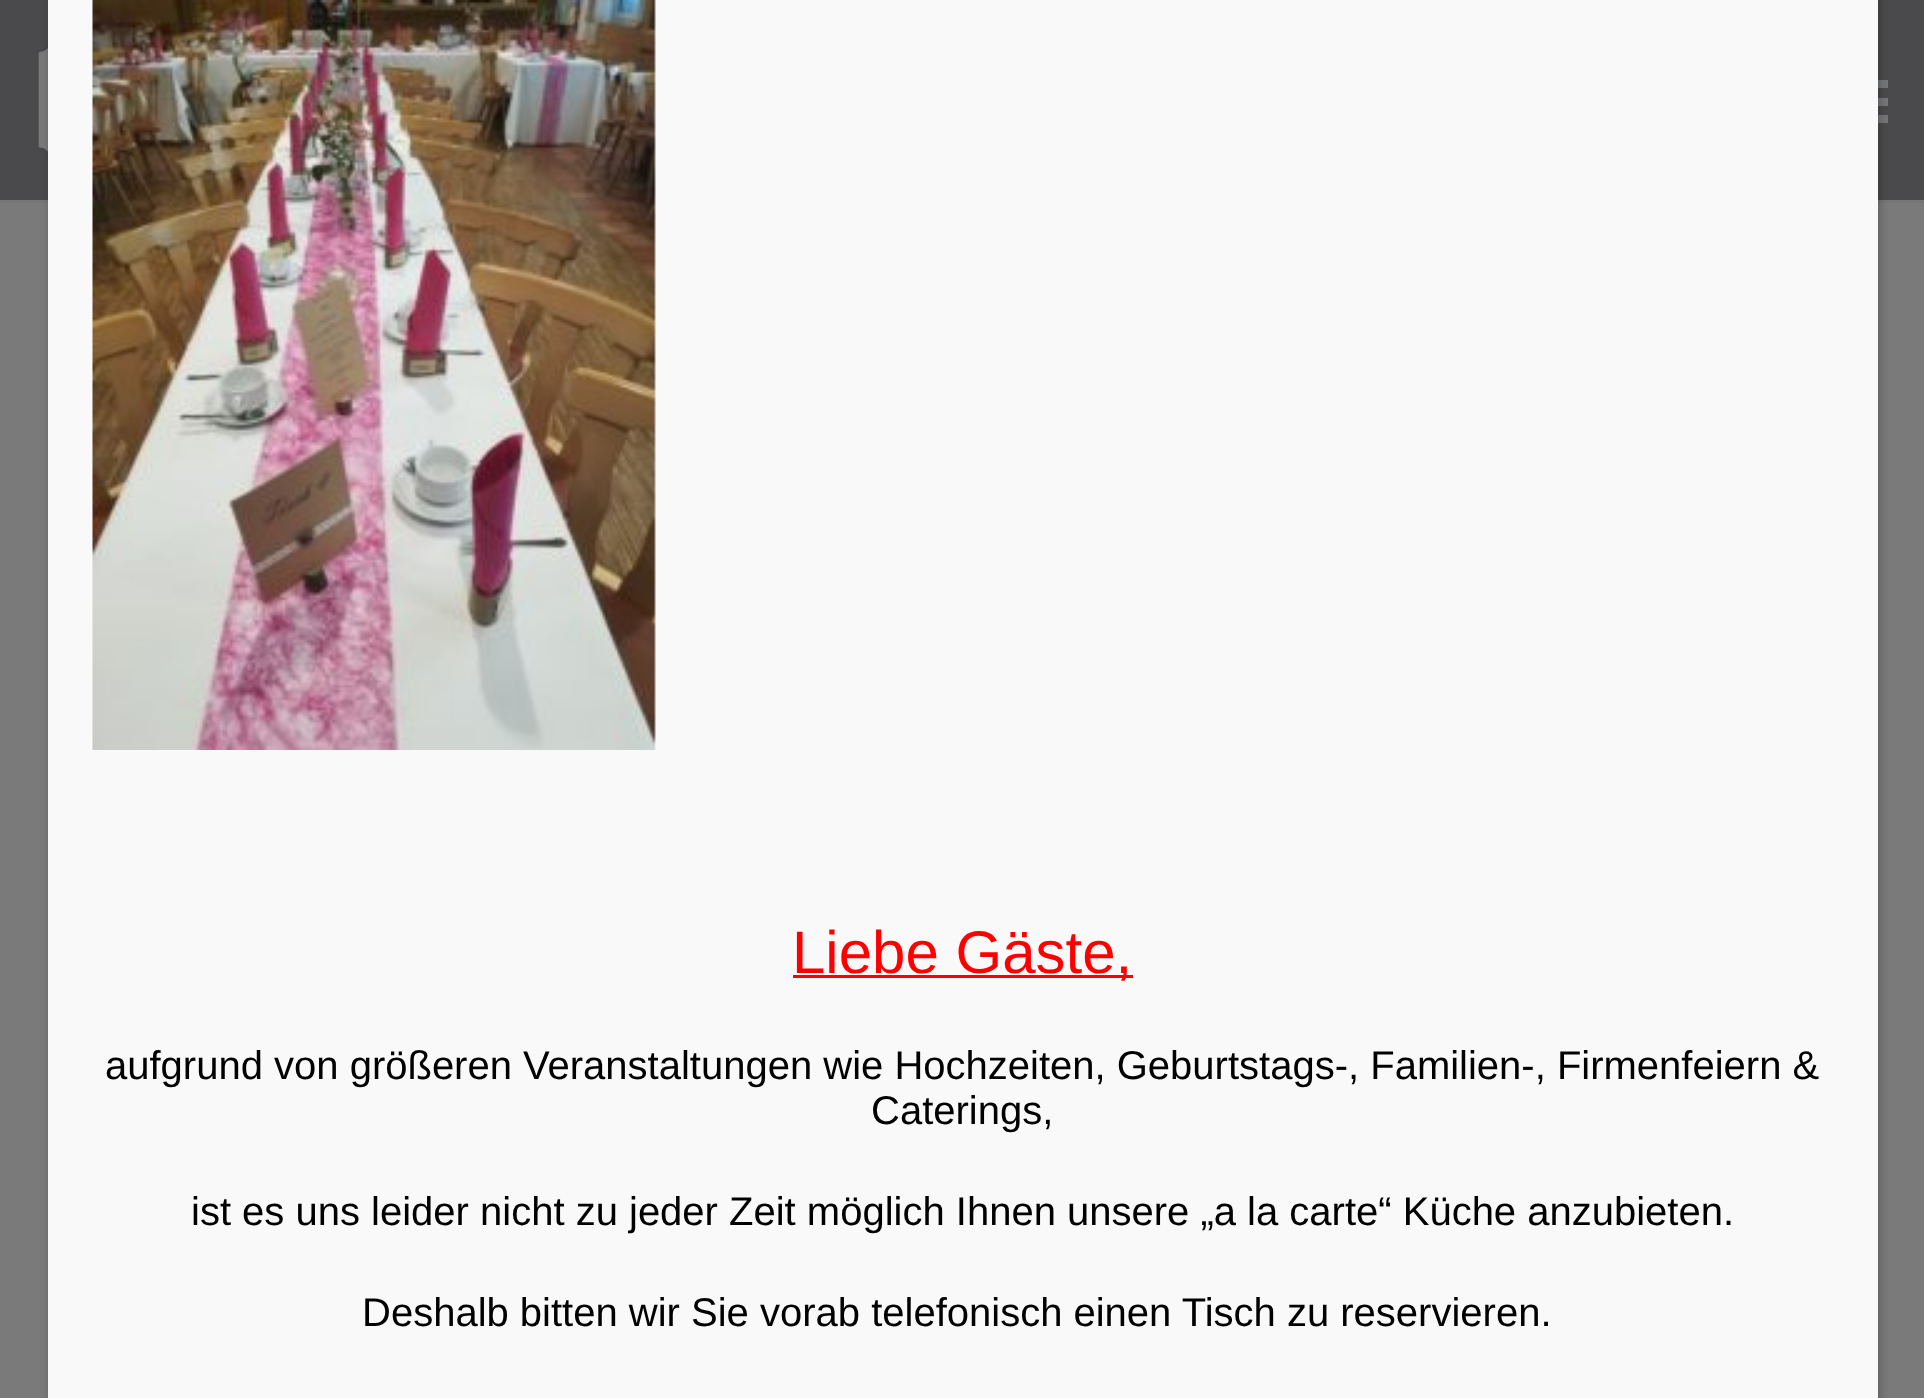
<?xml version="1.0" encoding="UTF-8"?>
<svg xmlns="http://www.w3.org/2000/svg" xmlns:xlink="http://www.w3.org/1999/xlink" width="1924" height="1398">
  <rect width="100%" height="100%" fill="#7a7a7a" />
  <rect y="200" width="1924" height="3" fill="#757575" />
  <rect width="1924" height="200" fill="#4a4a4c" />
  <image x="37" y="45" width="11" height="109" xlink:href="image1.png" />
  <rect x="1878" y="98" width="10" height="8" fill="#757677" />
  <rect x="1878" y="80" width="10" height="8" fill="#757677" />
  <rect x="1878" y="115" width="10" height="8" fill="#757677" />
  <rect x="50" y="-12" width="1830" height="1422" fill="#020202" fill-opacity="0.23" filter="blur(4px)" />
  <rect x="48" width="1830" height="1398" fill="#f9f9f9" />
  <image x="92" y="0" width="564" height="750" xlink:href="image2.png" />
  <rect x="793" y="975" width="340" height="3" fill="#ff0000" />
  <text x="792" y="973" style="font-family: Liberation Sans; font-size: 60px; fill: #ff0000">Liebe Gäste,</text>
  <text x="105" y="1079" style="font-family: Liberation Sans; font-size: 40px; fill: #000000">aufgrund von größeren Veranstaltungen wie Hochzeiten, Geburtstags-, Familien-, Firmenfeiern &amp;</text>
  <text x="871" y="1124" style="font-family: Liberation Sans; font-size: 40px; fill: #000000">Caterings,</text>
  <text x="191" y="1225" style="font-family: Liberation Sans; font-size: 40px; fill: #000000">ist es uns leider nicht zu jeder Zeit möglich Ihnen unsere „a la carte“ Küche anzubieten.</text>
  <text x="362" y="1326" style="font-family: Liberation Sans; font-size: 40px; fill: #000000">Deshalb bitten wir Sie vorab telefonisch einen Tisch zu reservieren.</text>
</svg>
